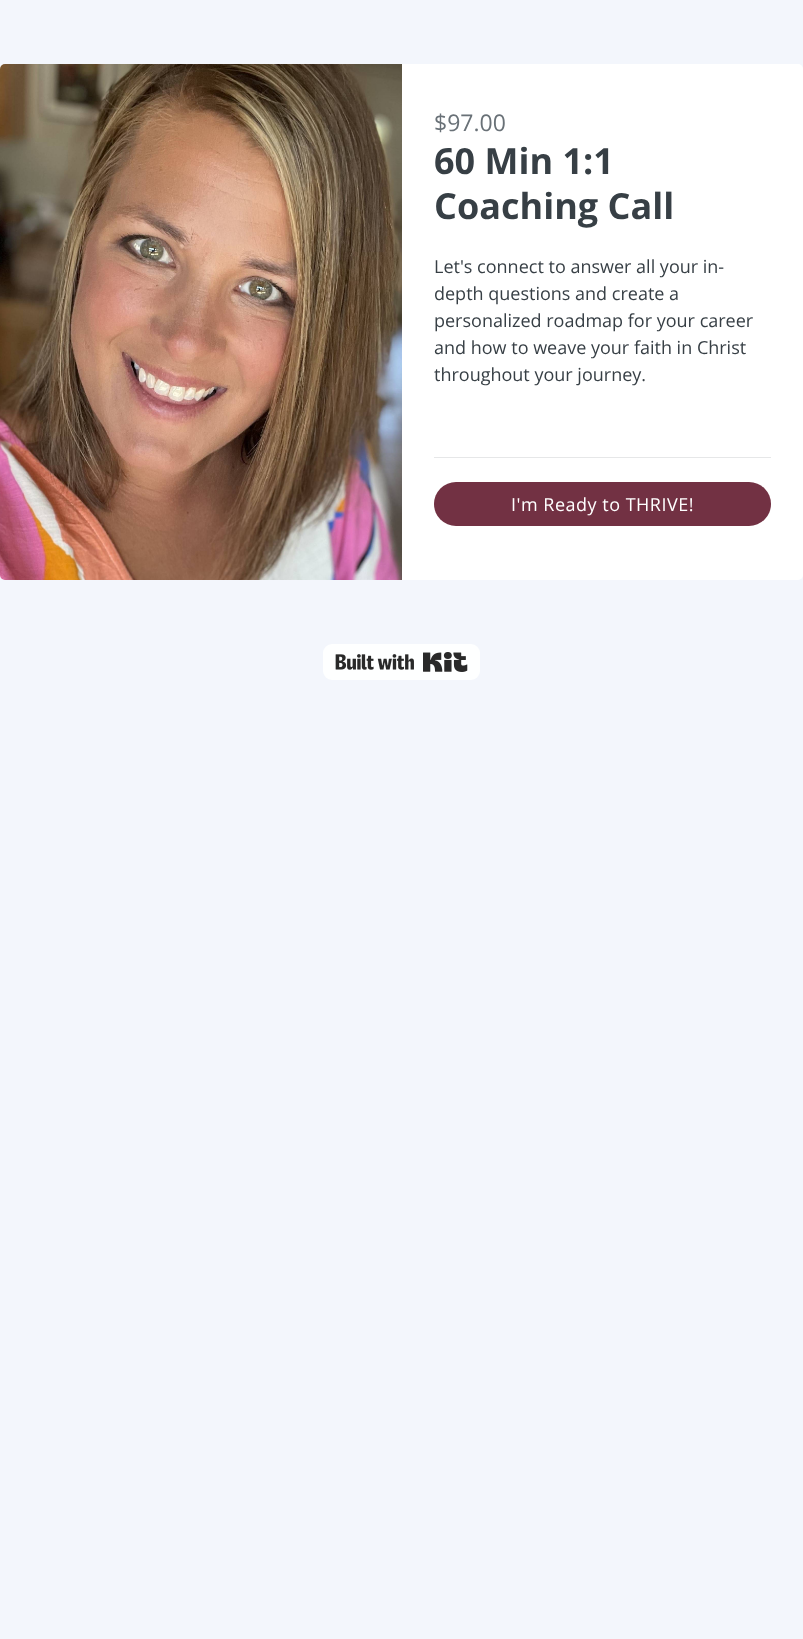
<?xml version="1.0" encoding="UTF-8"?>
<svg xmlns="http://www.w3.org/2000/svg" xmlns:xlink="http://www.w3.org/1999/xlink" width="803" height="1639">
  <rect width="100%" height="100%" fill="#f3f6fc" />
  <rect y="64" width="803" height="516" rx="5" fill="#ffffff" />
  <image x="0" y="64" width="402" height="516" xlink:href="image1.png" />
  <rect x="434" y="457" width="337" height="1" fill="#e6e7e8" />
  <rect x="434" y="482" width="337" height="44" rx="22" fill="#723143" />
  <rect x="323" y="644" width="157" height="36" rx="9" fill="#feffff" />
  <image x="335" y="652" width="133" height="20" xlink:href="image2.png" />
  <text x="434" y="131" style="font-family: Open Sans; font-size: 23px; fill: #697177">$97.00</text>
  <text x="434" y="174" style="font-family: Open Sans; font-size: 36px; font-weight: bold; fill: #373f45">60 Min 1:1</text>
  <text x="434" y="219" style="font-family: Open Sans; font-size: 36px; font-weight: bold; fill: #373f45">Coaching Call</text>
  <text x="434" y="273" style="font-family: Open Sans; font-size: 18px; fill: #373f45">Let's connect to answer all your in-</text>
  <text x="434" y="300" style="font-family: Open Sans; font-size: 18px; fill: #373f45">depth questions and create a</text>
  <text x="434" y="327" style="font-family: Open Sans; font-size: 18px; fill: #373f45">personalized roadmap for your career</text>
  <text x="434" y="354" style="font-family: Open Sans; font-size: 18px; fill: #373f45">and how to weave your faith in Christ</text>
  <text x="434" y="381" style="font-family: Open Sans; font-size: 18px; fill: #373f45">throughout your journey.</text>
  <text x="511" y="511" style="font-family: Open Sans; font-size: 18px; letter-spacing: 0.5px; fill: #ffffff">I'm Ready to THRIVE!</text>
</svg>
